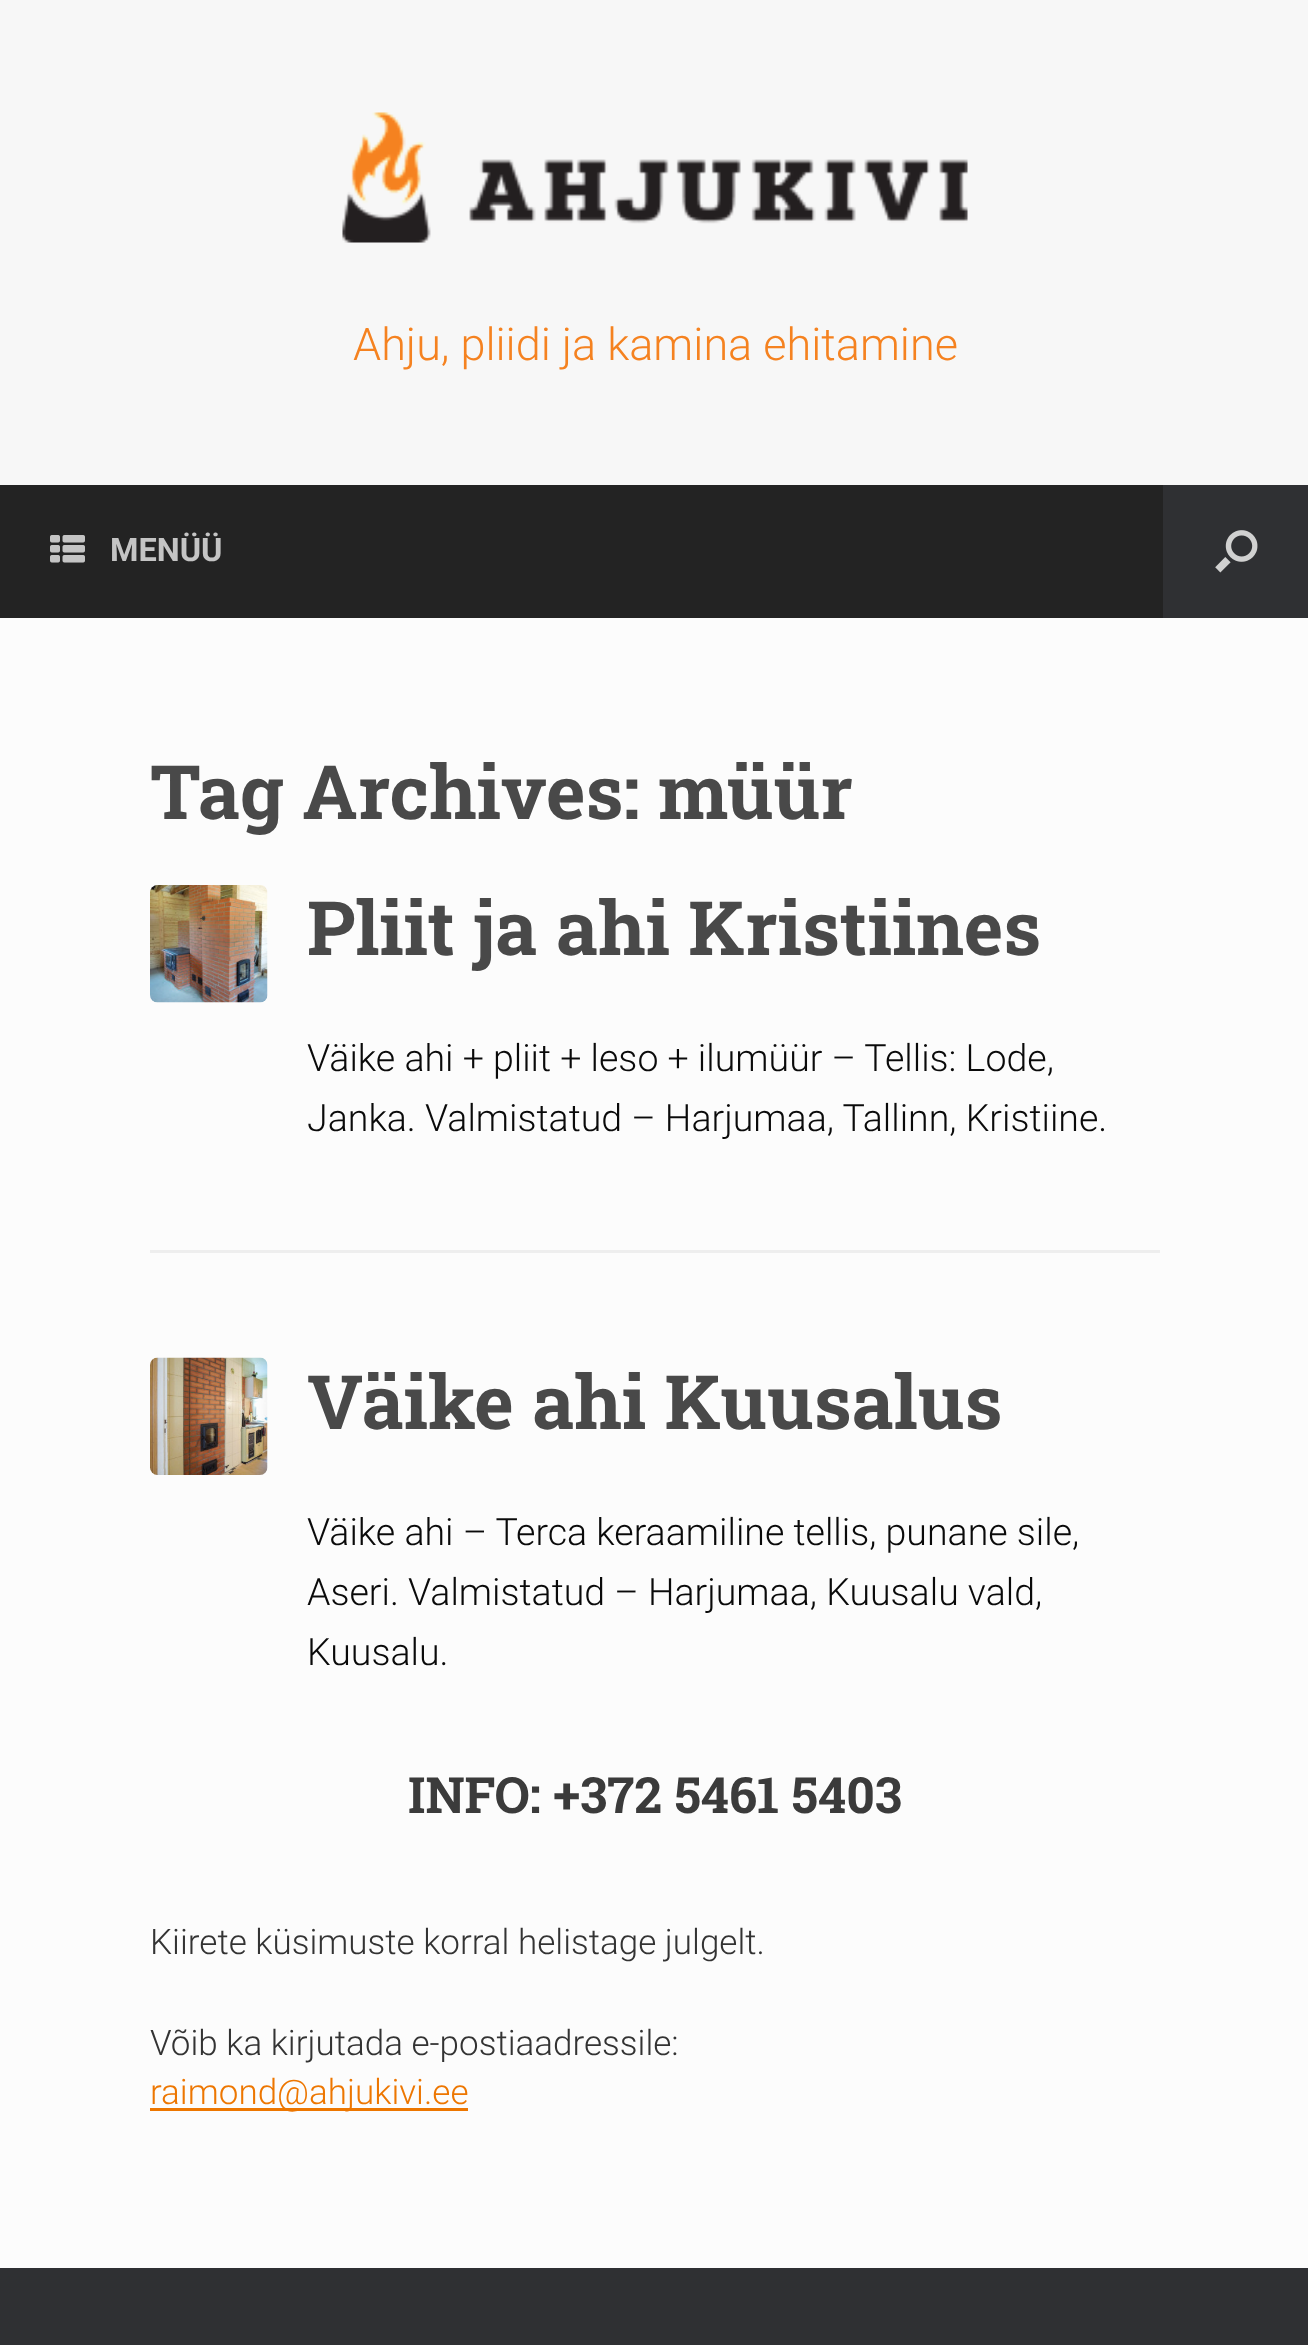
<?xml version="1.0" encoding="UTF-8"?>
<svg xmlns="http://www.w3.org/2000/svg" xmlns:xlink="http://www.w3.org/1999/xlink" width="1308" height="2345">
  <rect width="100%" height="100%" fill="#2f3033" />
  <rect width="1308" height="485" fill="#f7f7f7" />
  <image x="342" y="112" width="626" height="131" xlink:href="image1.png" />
  <rect y="485" width="1163" height="133" fill="#232323" />
  <image x="50" y="535" width="35" height="28" xlink:href="image2.png" />
  <image x="1215" y="530" width="43" height="43" xlink:href="image3.png" />
  <rect y="618" width="1308" height="1650" fill="#fcfcfc" />
  <rect x="150" y="1250" width="1010" height="3" fill="#eeeeee" />
  <image x="150" y="885" width="118" height="118" xlink:href="image4.png" />
  <image x="150" y="1357" width="118" height="118" xlink:href="image5.png" />
  <rect x="150" y="2108" width="318" height="3" fill="#ed7600" />
  <text x="353" y="360" style="font-family: Roboto; font-size: 45px; font-weight: 300; fill: #f58220">Ahju, pliidi ja kamina ehitamine</text>
  <text x="110" y="561" style="font-family: Roboto; font-size: 32.5px; font-weight: bold; fill: #c4c4c4">MENÜÜ</text>
  <text x="150" y="819" style="font-family: Roboto Slab; font-size: 75px; font-weight: bold; fill: #494949">Tag Archives: müür</text>
  <text x="307" y="955" style="font-family: Roboto Slab; font-size: 75px; font-weight: bold; fill: #494949">Pliit ja ahi Kristiines</text>
  <text x="307" y="1071" style="font-family: Roboto; font-size: 37.5px; font-weight: 300; fill: #0a0a0a">Väike ahi + pliit + leso + ilumüür – Tellis: Lode,</text>
  <text x="307" y="1131" style="font-family: Roboto; font-size: 37.5px; font-weight: 300; fill: #0a0a0a">Janka. Valmistatud – Harjumaa, Tallinn, Kristiine.</text>
  <text x="307" y="1429" style="font-family: Roboto Slab; font-size: 75px; font-weight: bold; fill: #494949">Väike ahi Kuusalus</text>
  <text x="307" y="1545" style="font-family: Roboto; font-size: 37.5px; font-weight: 300; fill: #0a0a0a">Väike ahi – Terca keraamiline tellis, punane sile,</text>
  <text x="307" y="1605" style="font-family: Roboto; font-size: 37.5px; font-weight: 300; fill: #0a0a0a">Aseri. Valmistatud – Harjumaa, Kuusalu vald,</text>
  <text x="307" y="1665" style="font-family: Roboto; font-size: 37.5px; font-weight: 300; fill: #0a0a0a">Kuusalu.</text>
  <text x="408" y="1813" style="font-family: Roboto Slab; font-size: 50px; font-weight: bold; fill: #3b3b3b">INFO: +372 5461 5403</text>
  <text x="150" y="1954" style="font-family: Roboto; font-size: 35px; font-weight: 300; fill: #333333">Kiirete küsimuste korral helistage julgelt.</text>
  <text x="150" y="2055" style="font-family: Roboto; font-size: 35px; font-weight: 300; fill: #333333">Võib ka kirjutada e-postiaadressile:</text>
  <text x="150" y="2104" style="font-family: Roboto; font-size: 35px; font-weight: 300; fill: #ed7600">raimond@ahjukivi.ee</text>
</svg>
